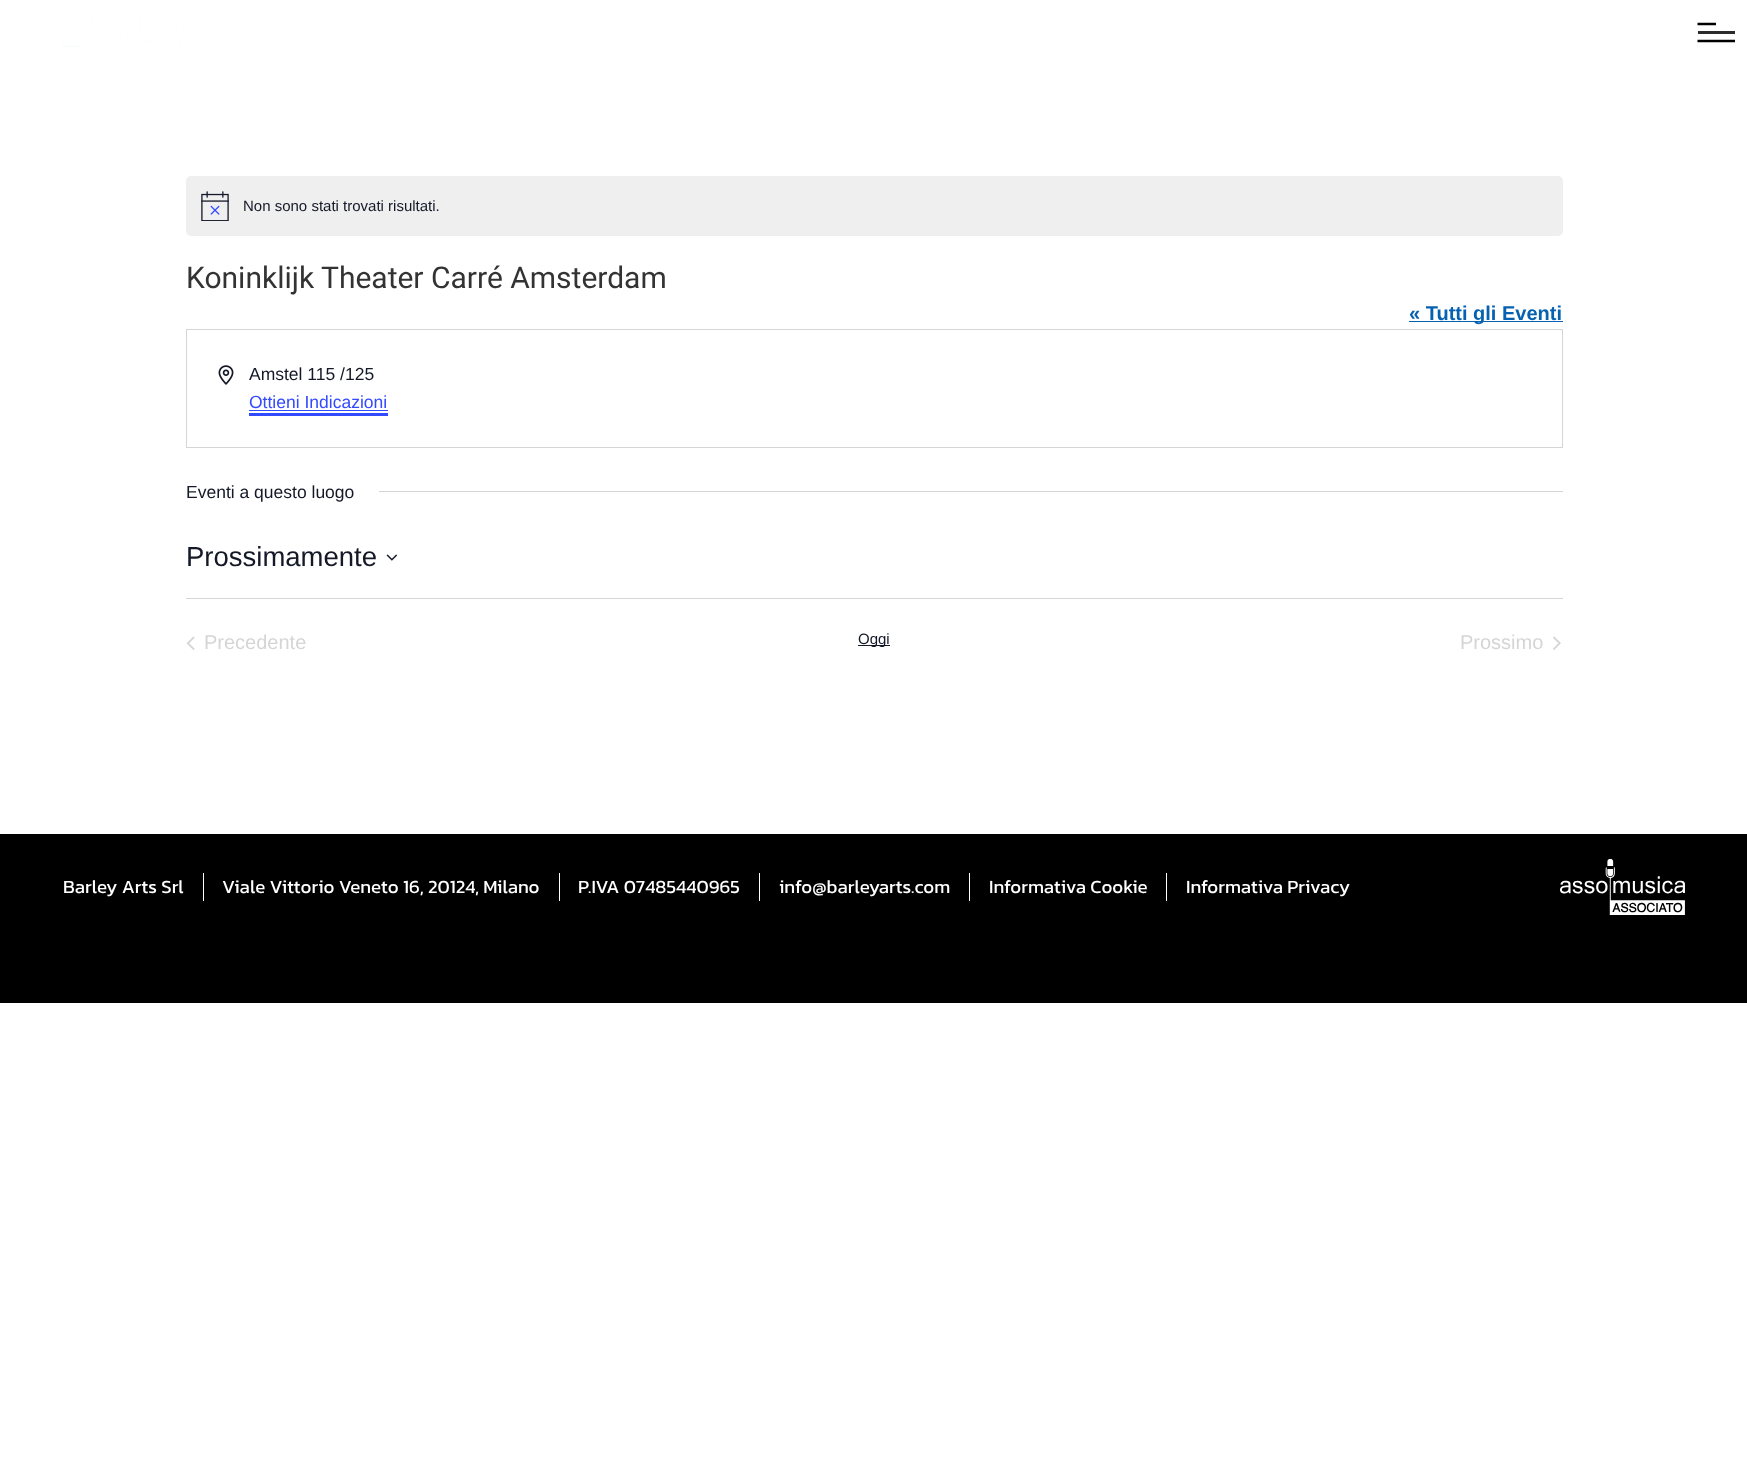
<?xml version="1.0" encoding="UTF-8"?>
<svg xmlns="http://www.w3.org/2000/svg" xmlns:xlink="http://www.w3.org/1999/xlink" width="1747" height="1483">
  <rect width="100%" height="100%" fill="#ffffff" />
  <image x="63" y="16" width="127" height="63" xlink:href="image1.png" />
  <path d="M 1697.5 24 h 18.5" fill="none" stroke="#000000" stroke-width="2.5" />
  <rect x="1698" y="31" width="37" height="3" fill="#2b2b2b" />
  <path d="M 1697.5 41 h 37.5" fill="none" stroke="#000000" stroke-width="2.5" />
  <rect x="186" y="176" width="1377" height="60" rx="5" fill="#efeff0" />
  <image x="201" y="191" width="28" height="30" xlink:href="image2.png" />
  <rect x="1409" y="321" width="154" height="1" fill="#0662b0" />
  <rect x="186.5" y="329.5" width="1376" height="118" fill="none" stroke="#d5d5d5" />
  <image x="218" y="365" width="16" height="20" xlink:href="image3.png" />
  <rect x="249" y="413" width="139" height="3" fill="#334aff" />
  <rect x="249" y="410" width="139" height="1" fill="#334aff" />
  <rect x="379" y="491" width="1184" height="1" fill="#d5d5d5" />
  <image x="386" y="554" width="12" height="7" xlink:href="image4.png" />
  <rect x="186" y="598" width="1377" height="1" fill="#d5d5d5" />
  <image x="186" y="636" width="9" height="14" xlink:href="image5.png" />
  <rect x="858" y="645" width="32" height="1" fill="#141827" />
  <image x="1553" y="636" width="8" height="14" xlink:href="image6.png" />
  <rect y="834" width="1747" height="169" fill="#000000" />
  <rect x="203" y="873" width="1" height="28" fill="#ffffff" />
  <rect x="559" y="873" width="1" height="28" fill="#ffffff" />
  <rect x="759" y="873" width="1" height="28" fill="#ffffff" />
  <rect x="969" y="873" width="1" height="28" fill="#ffffff" />
  <rect x="1166" y="873" width="1" height="28" fill="#ffffff" />
  <image x="1560" y="859" width="125" height="56" xlink:href="image7.png" />
  <text x="243" y="211" style="font-family: Liberation Sans; font-size: 15px; fill: #141827">Non sono stati trovati risultati.</text>
  <text x="186" y="288" style="font-family: Roboto; font-size: 30px; fill: #333333">Koninklijk Theater Carré Amsterdam</text>
  <text x="1409" y="320" style="font-family: Liberation Sans; font-size: 20px; font-weight: bold; fill: #0662b0">« Tutti gli Eventi</text>
  <text x="249" y="380" style="font-family: Liberation Sans; font-size: 17.5px; fill: #141827">Amstel 115 /125</text>
  <text x="249" y="408" style="font-family: Liberation Sans; font-size: 17.5px; fill: #334aff">Ottieni Indicazioni</text>
  <text x="186" y="498" style="font-family: Liberation Sans; font-size: 17.5px; fill: #141827">Eventi a questo luogo</text>
  <text x="186" y="566" style="font-family: Liberation Sans; font-size: 27.5px; fill: #141827">Prossimamente</text>
  <text x="204" y="649" style="font-family: Liberation Sans; font-size: 20px; fill: #d5d5d5">Precedente</text>
  <text x="858" y="644" style="font-family: Liberation Sans; font-size: 15px; fill: #141827">Oggi</text>
  <text x="1460" y="649" style="font-family: Liberation Sans; font-size: 20px; fill: #d5d5d5">Prossimo</text>
  <text x="63" y="893" style="font-family: Kanit; font-size: 18.75px; fill: #ffffff">Barley Arts Srl</text>
  <text x="222" y="893" style="font-family: Kanit; font-size: 18.75px; fill: #ffffff">Viale Vittorio Veneto 16, 20124, Milano</text>
  <text x="578" y="893" style="font-family: Kanit; font-size: 18.75px; fill: #ffffff">P.IVA 07485440965</text>
  <text x="779" y="893" style="font-family: Kanit; font-size: 18.75px; fill: #ffffff">info@barleyarts.com</text>
  <text x="989" y="893" style="font-family: Kanit; font-size: 18.75px; fill: #ffffff">Informativa Cookie</text>
  <text x="1186" y="893" style="font-family: Kanit; font-size: 18.75px; fill: #ffffff">Informativa Privacy</text>
</svg>
